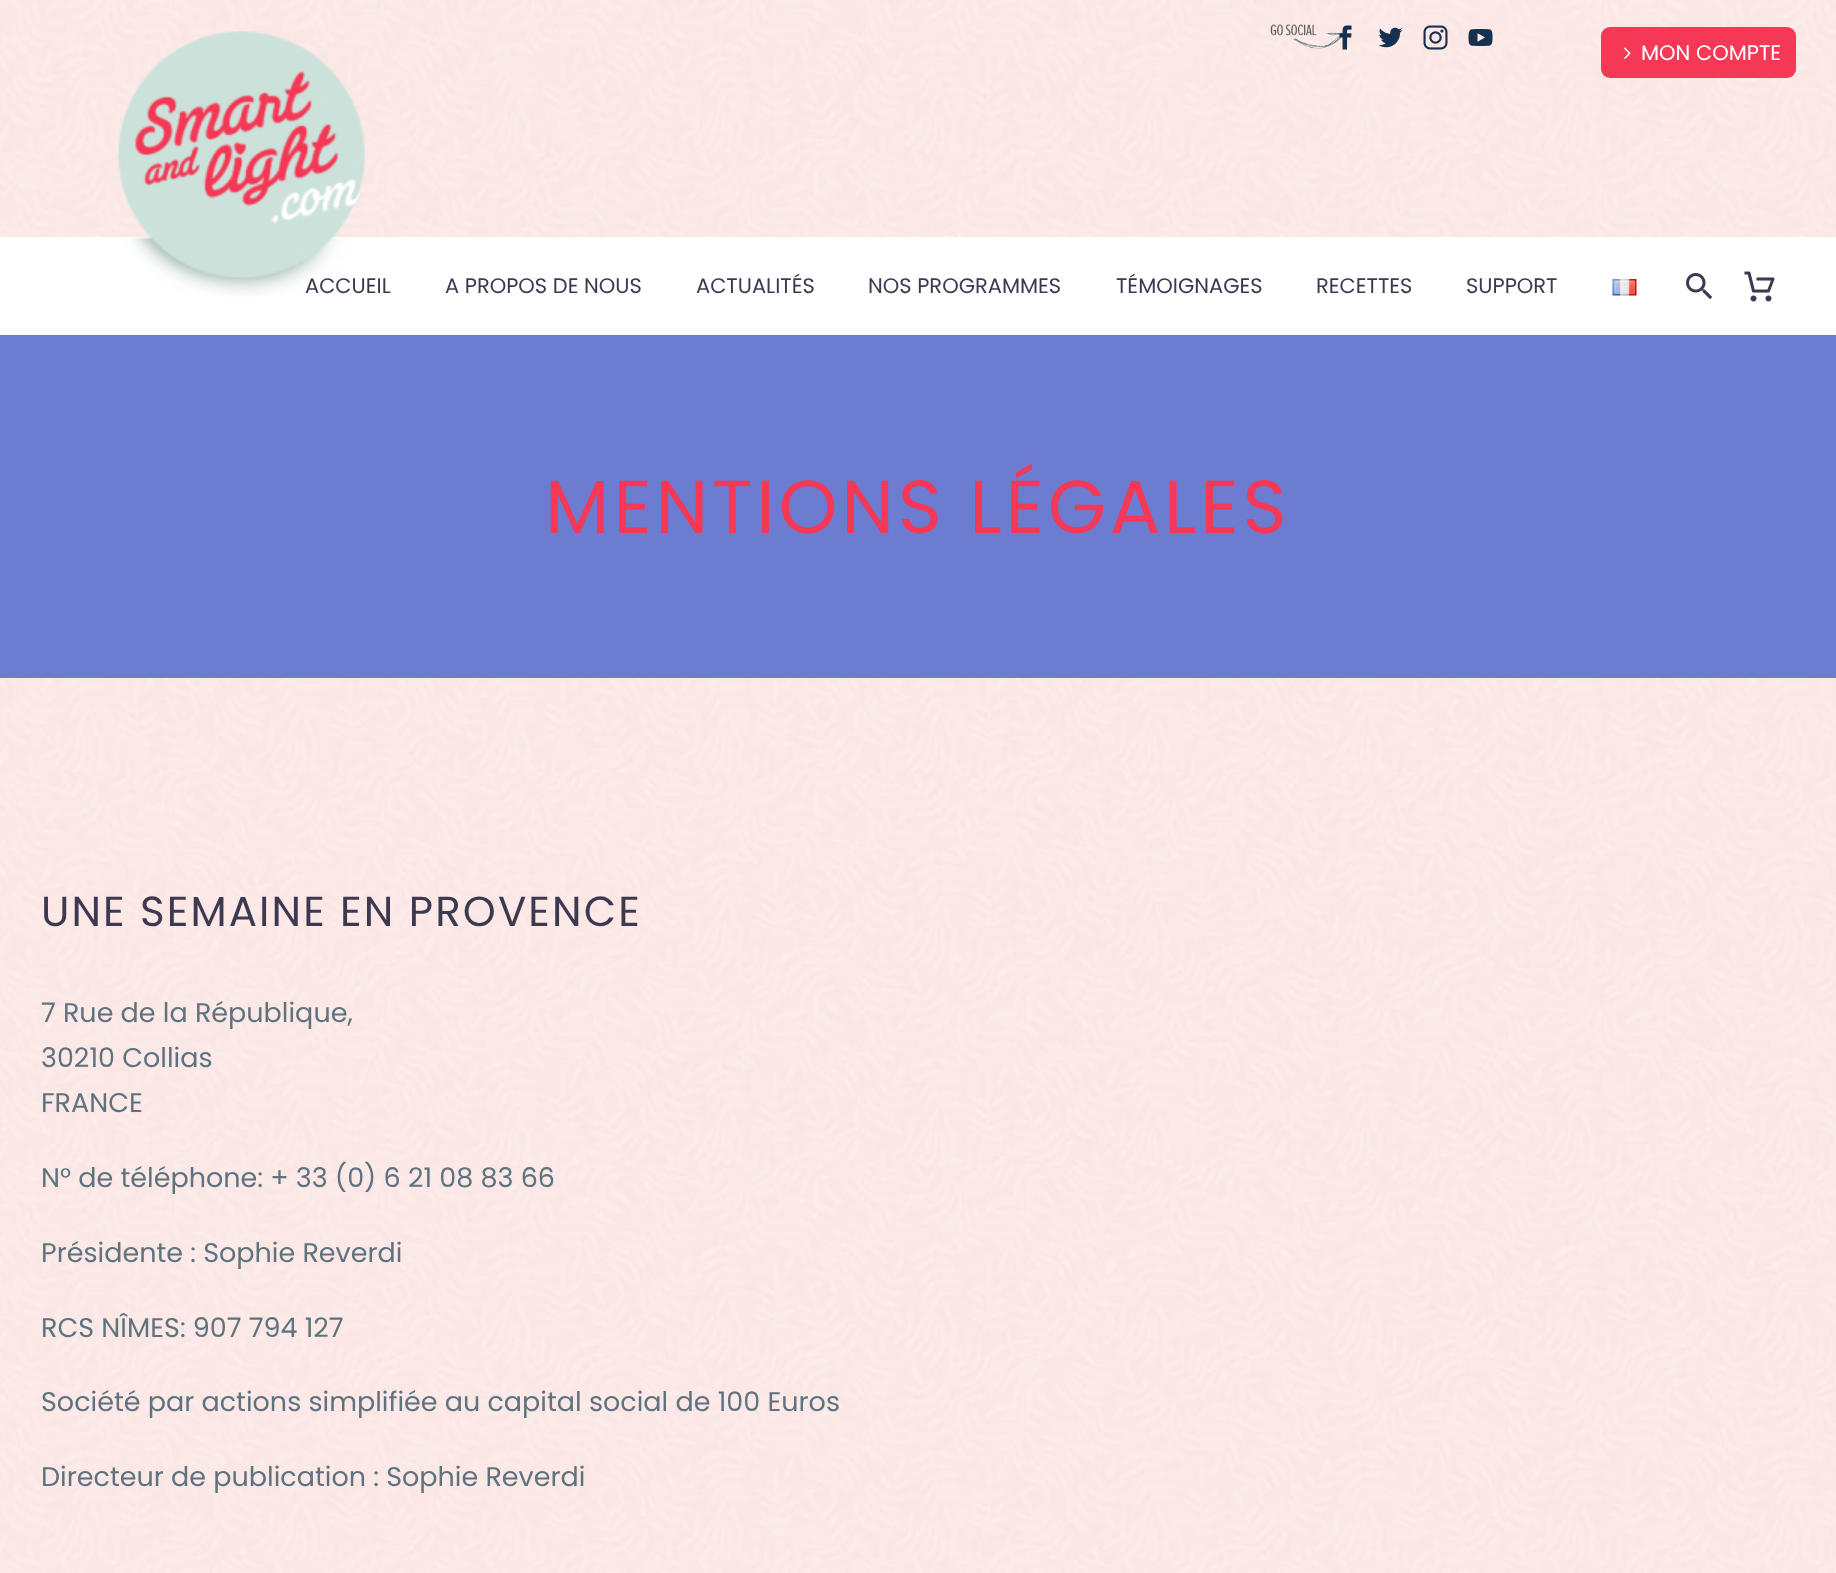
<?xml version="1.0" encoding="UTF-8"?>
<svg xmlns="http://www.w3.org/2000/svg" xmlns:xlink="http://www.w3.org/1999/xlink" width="1836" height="1573">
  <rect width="100%" height="100%" fill="#ffffff" />
  <image x="0" y="678" width="1836" height="895" xlink:href="image1.png" />
  <image x="0" y="0" width="1836" height="237" xlink:href="image8.png" />
  <image x="1270" y="24" width="73" height="26" xlink:href="image2.png" />
  <image x="1339" y="25" width="13" height="25" xlink:href="image3.png" />
  <image x="1378" y="27" width="25" height="21" xlink:href="image4.png" />
  <image x="1423" y="25" width="25" height="25" xlink:href="image5.png" />
  <image x="1468" y="29" width="25" height="17" xlink:href="image6.png" />
  <rect x="1601" y="27" width="195" height="51" rx="9" fill="#f53855" />
  <image x="1624" y="47" width="7" height="12" xlink:href="image7.png" />
  <image x="1612" y="279" width="25" height="17" xlink:href="image10.png" />
  <image x="1686" y="273" width="27" height="27" xlink:href="image11.png" />
  <image x="1744" y="271" width="31" height="31" xlink:href="image12.png" />
  <rect y="335" width="1836" height="343" fill="#6c7cd0" />
  <text x="1641" y="60" style="font-family: Poppins; font-size: 21px; fill: #ffffff">MON COMPTE</text>
  <text x="305" y="293" style="font-family: Poppins; font-size: 21px; fill: #3c3950">ACCUEIL</text>
  <image x="118" y="31" width="247" height="266" xlink:href="image9.png" />
  <text x="445" y="293" style="font-family: Poppins; font-size: 21px; fill: #3c3950">A PROPOS DE NOUS</text>
  <text x="696" y="293" style="font-family: Poppins; font-size: 21px; fill: #3c3950">ACTUALITÉS</text>
  <text x="868" y="293" style="font-family: Poppins; font-size: 21px; fill: #3c3950">NOS PROGRAMMES</text>
  <text x="1116" y="293" style="font-family: Poppins; font-size: 21px; fill: #3c3950">TÉMOIGNAGES</text>
  <text x="1316" y="293" style="font-family: Poppins; font-size: 21px; fill: #3c3950">RECETTES</text>
  <text x="1466" y="293" style="font-family: Poppins; font-size: 21px; fill: #3c3950">SUPPORT</text>
  <text x="545" y="533" style="font-family: Poppins; font-size: 75px; letter-spacing: 3.75px; fill: #f53855">MENTIONS LÉGALES</text>
  <text x="41" y="926" style="font-family: Poppins; font-size: 42px; letter-spacing: 2.1px; fill: #3c3950">UNE SEMAINE EN PROVENCE</text>
  <text x="41" y="1022" style="font-family: Poppins; font-size: 27px; fill: #5f727f">7 Rue de la République,</text>
  <text x="41" y="1067" style="font-family: Poppins; font-size: 27px; fill: #5f727f">30210 Collias</text>
  <text x="41" y="1112" style="font-family: Poppins; font-size: 27px; fill: #5f727f">FRANCE</text>
  <text x="41" y="1187" style="font-family: Poppins; font-size: 27px; fill: #5f727f">N° de téléphone: + 33 (0) 6 21 08 83 66</text>
  <text x="41" y="1262" style="font-family: Poppins; font-size: 27px; fill: #5f727f">Présidente : Sophie Reverdi</text>
  <text x="41" y="1337" style="font-family: Poppins; font-size: 27px; fill: #5f727f">RCS NÎMES: 907 794 127</text>
  <text x="41" y="1411" style="font-family: Poppins; font-size: 27px; fill: #5f727f">Société par actions simplifiée au capital social de 100 Euros</text>
  <text x="41" y="1486" style="font-family: Poppins; font-size: 27px; fill: #5f727f">Directeur de publication : Sophie Reverdi</text>
</svg>
